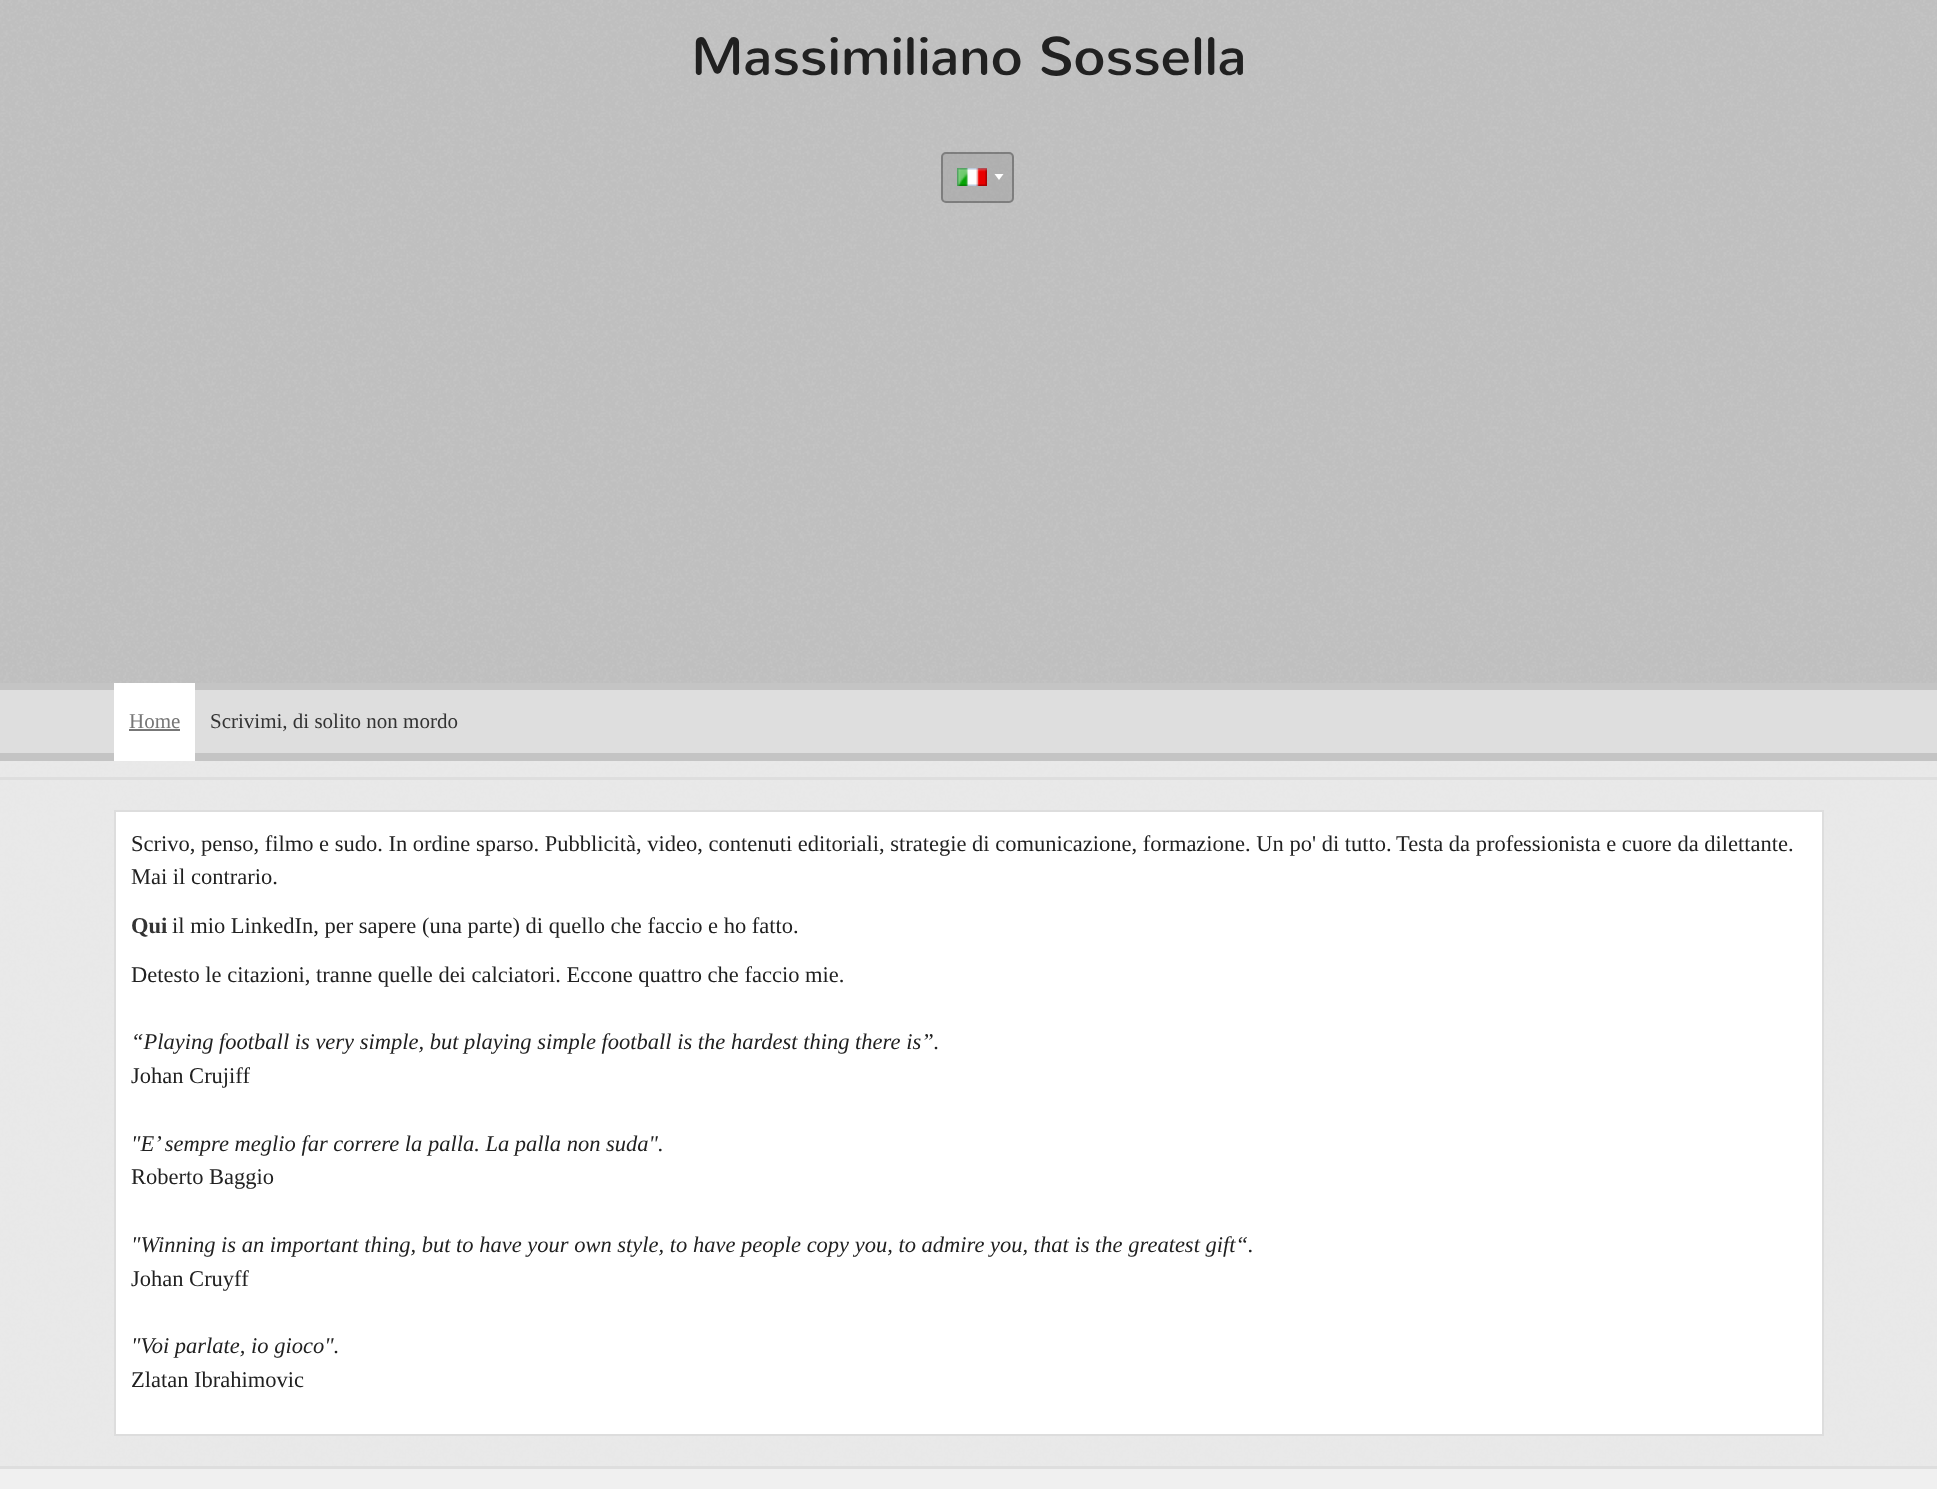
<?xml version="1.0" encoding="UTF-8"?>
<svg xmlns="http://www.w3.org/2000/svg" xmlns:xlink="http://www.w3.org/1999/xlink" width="1937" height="1489">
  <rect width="100%" height="100%" fill="#ffffff" />
  <image x="0" y="0" width="1937" height="1466" xlink:href="image1.png" />
  <rect x="941" y="152" width="73" height="51" rx="5" fill="#999999" fill-opacity="0.4" />
  <rect x="942" y="153" width="71" height="49" rx="4" fill="none" stroke="#333333" stroke-opacity="0.4" stroke-width="2" />
  <image x="957" y="168" width="30" height="18" xlink:href="image2.png" />
  <path d="M 994.5 174 h 9 l -4.5 6 z" fill="#ffffff" />
  <rect y="690" width="1937" height="63" fill="#dedede" />
  <rect y="683" width="1937" height="7" fill="#c4c4c4" />
  <rect y="753" width="1937" height="8" fill="#c4c4c4" />
  <rect x="114" y="683" width="81" height="78" fill="#ffffff" />
  <rect x="129" y="729" width="51" height="2" fill="#777777" />
  <rect y="761" width="1937" height="705" fill="#f2f2f2" fill-opacity="0.8" />
  <rect y="777" width="1937" height="3" fill="#dedede" />
  <rect x="115" y="811" width="1708" height="624" fill="#ffffff" stroke="#dddddd" stroke-width="2" />
  <rect y="1466" width="1937" height="3" fill="#dedede" />
  <rect y="1469" width="1937" height="20" fill="#f0f0f0" />
  <text x="691" y="75" style="font-family: Nunito; font-size: 54px; fill: #212121">Massimiliano Sossella</text>
  <text x="129" y="728" style="font-family: Liberation Serif; font-size: 21px; fill: #777777">Home</text>
  <text x="210" y="728" style="font-family: Liberation Serif; font-size: 21px; fill: #333333">Scrivimi, di solito non mordo</text>
  <text x="131" y="851" style="font-family: Liberation Serif; font-size: 22.5px; fill: #212121">Scrivo, penso, filmo e sudo. In ordine sparso. Pubblicità, video, contenuti editoriali, strategie di comunicazione, formazione. Un po' di tutto.</text>
  <text x="1396" y="851" style="font-family: Liberation Serif; font-size: 22.5px; fill: #212121">Testa da professionista e cuore da dilettante.</text>
  <text x="131" y="884" style="font-family: Liberation Serif; font-size: 22.5px; fill: #212121">Mai il contrario.</text>
  <text x="131" y="933" style="font-family: Liberation Serif; font-size: 22.5px; font-weight: bold; fill: #333333">Qui</text>
  <text x="172" y="933" style="font-family: Liberation Serif; font-size: 22.5px; fill: #212121">il mio LinkedIn, per sapere (una parte) di quello che faccio e ho fatto.</text>
  <text x="131" y="982" style="font-family: Liberation Serif; font-size: 22.5px; fill: #212121">Detesto le citazioni, tranne quelle dei calciatori. Eccone quattro che faccio mie.</text>
  <text x="131" y="1049" style="font-family: Liberation Serif; font-size: 22.5px; font-style: italic; fill: #212121">“Playing football is very simple, but playing simple football is the hardest thing there is”.</text>
  <text x="131" y="1083" style="font-family: Liberation Serif; font-size: 22.5px; fill: #212121">Johan Crujiff</text>
  <text x="131" y="1151" style="font-family: Liberation Serif; font-size: 22.5px; font-style: italic; fill: #212121">"E’ sempre meglio far correre la palla. La palla non suda".</text>
  <text x="131" y="1184" style="font-family: Liberation Serif; font-size: 22.5px; fill: #212121">Roberto Baggio</text>
  <text x="131" y="1252" style="font-family: Liberation Serif; font-size: 22.5px; font-style: italic; fill: #212121">"Winning is an important thing, but to have your own style, to have people copy you, to admire you, that is the greatest gift“.</text>
  <text x="131" y="1286" style="font-family: Liberation Serif; font-size: 22.5px; fill: #212121">Johan Cruyff</text>
  <text x="131" y="1353" style="font-family: Liberation Serif; font-size: 22.5px; font-style: italic; fill: #212121">"Voi parlate, io gioco".</text>
  <text x="131" y="1387" style="font-family: Liberation Serif; font-size: 22.5px; fill: #212121">Zlatan Ibrahimovic</text>
</svg>
